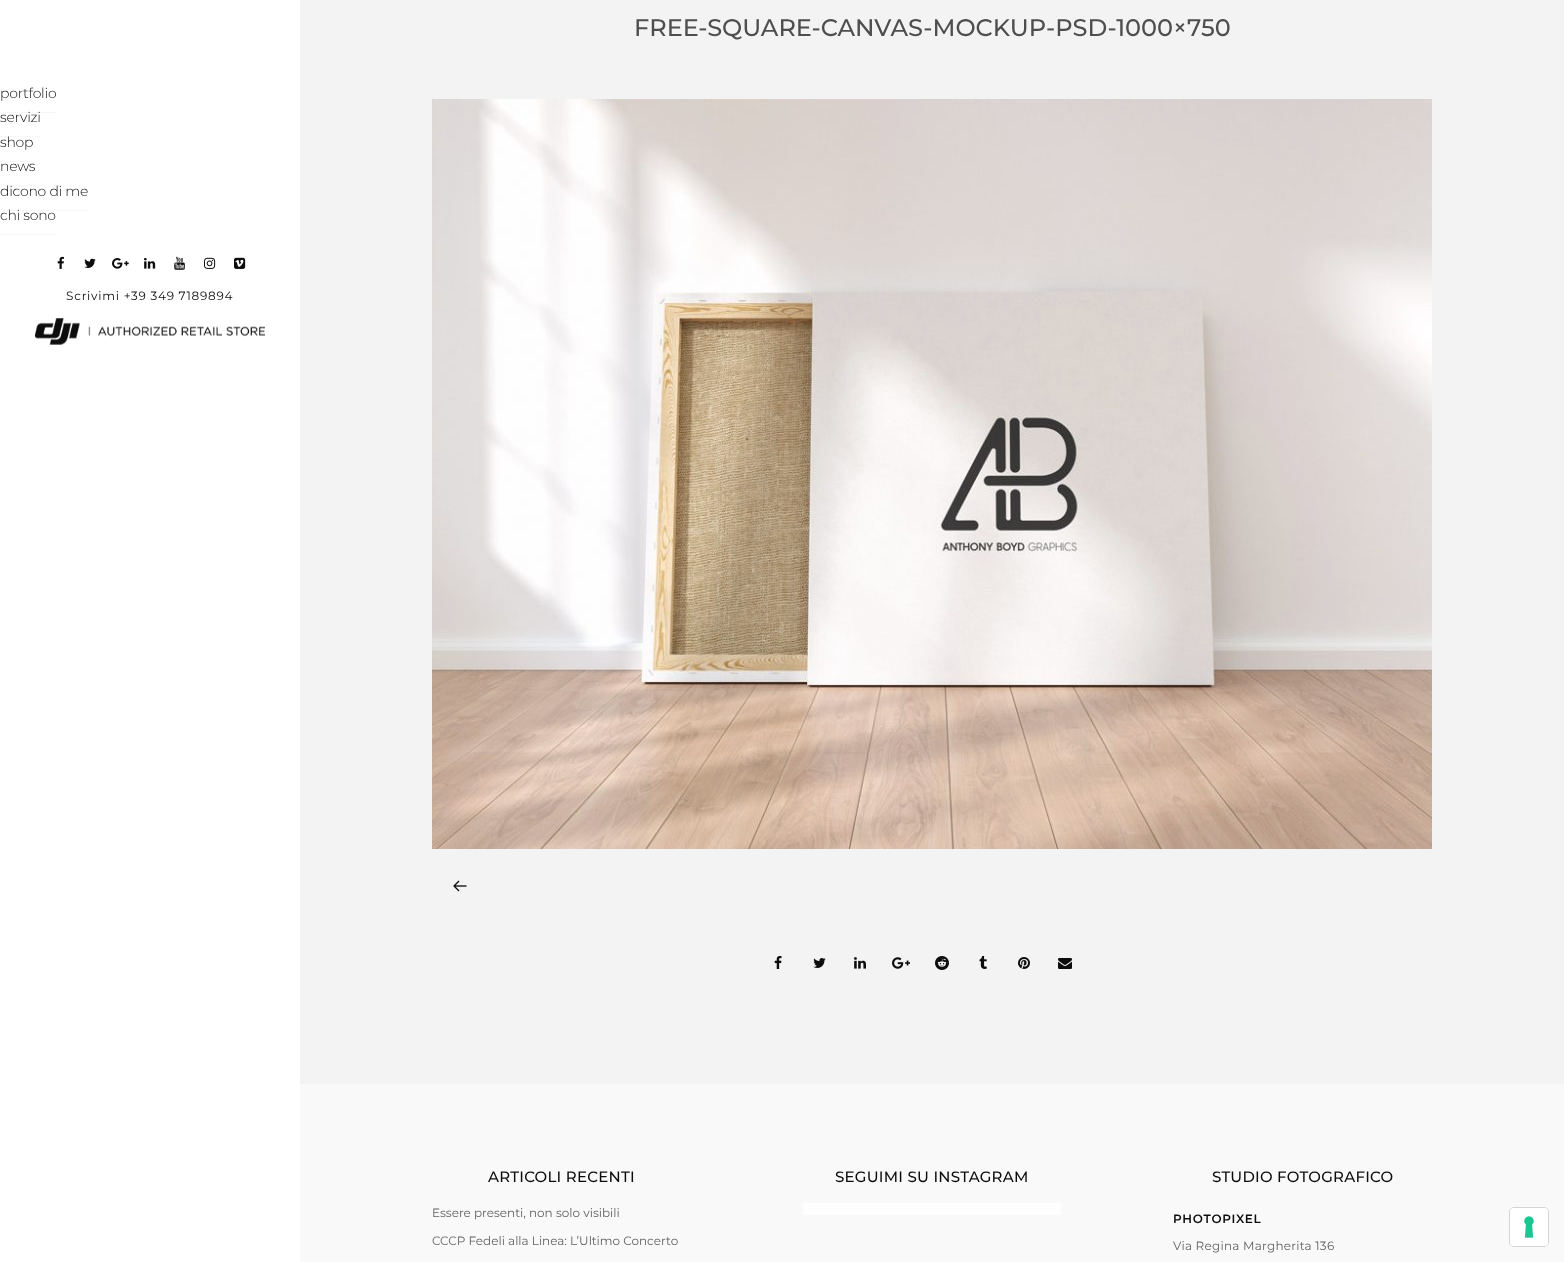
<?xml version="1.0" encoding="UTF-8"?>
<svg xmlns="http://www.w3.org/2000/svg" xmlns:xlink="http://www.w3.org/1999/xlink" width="1564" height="1262">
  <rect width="100%" height="100%" fill="#f3f3f3" />
  <rect width="300" height="1262" fill="#ffffff" />
  <rect y="112" width="56" height="1" fill="#f7f7f7" />
  <rect y="136" width="41" height="1" fill="#f7f7f7" />
  <rect y="161" width="33" height="1" fill="#f7f7f7" />
  <rect y="185" width="35" height="1" fill="#f7f7f7" />
  <rect y="210" width="88" height="1" fill="#f7f7f7" />
  <rect y="234" width="56" height="1" fill="#f7f7f7" />
  <image x="57" y="256" width="7" height="13" xlink:href="image1.png" />
  <image x="84" y="258" width="12" height="10" xlink:href="image2.png" />
  <image x="112" y="258" width="17" height="11" xlink:href="image3.png" />
  <image x="144" y="257" width="12" height="12" xlink:href="image4.png" />
  <image x="174" y="256" width="11" height="14" xlink:href="image5.png" />
  <image x="204" y="257" width="12" height="12" xlink:href="image6.png" />
  <image x="234" y="257" width="12" height="12" xlink:href="image7.png" />
  <image x="35" y="318" width="230" height="27" xlink:href="image8.png" />
  <image x="432" y="99" width="1000" height="750" xlink:href="image9.png" />
  <image x="453" y="880" width="14" height="12" xlink:href="image10.png" />
  <image x="774" y="956" width="8" height="13" xlink:href="image11.png" />
  <image x="813" y="958" width="13" height="10" xlink:href="image12.png" />
  <image x="854" y="957" width="12" height="12" xlink:href="image13.png" />
  <image x="892" y="957" width="18" height="12" xlink:href="image14.png" />
  <image x="935" y="956" width="14" height="14" xlink:href="image15.png" />
  <image x="979" y="956" width="8" height="13" xlink:href="image16.png" />
  <image x="1018" y="957" width="12" height="12" xlink:href="image17.png" />
  <image x="1058" y="958" width="14" height="11" xlink:href="image18.png" />
  <rect x="300" y="1084" width="1264" height="178" fill="#f9f9f9" />
  <rect x="803" y="1203" width="258" height="12" fill="#fefefe" />
  <rect x="1509.5" y="1207.5" width="39" height="39" rx="4.5" fill="none" stroke="#d4d4d4" />
  <rect x="1510" y="1208" width="38" height="38" rx="4" fill="#ffffff" />
  <image x="1524" y="1216" width="10" height="22" xlink:href="image19.png" />
  <text x="0" y="98" style="font-family: Montserrat; font-size: 14px; font-weight: 300; letter-spacing: -0.25px; fill: #0d0d0d">portfolio</text>
  <text x="0" y="122" style="font-family: Montserrat; font-size: 14px; font-weight: 300; letter-spacing: -0.25px; fill: #0d0d0d">servizi</text>
  <text x="0" y="147" style="font-family: Montserrat; font-size: 14px; font-weight: 300; letter-spacing: -0.25px; fill: #0d0d0d">shop</text>
  <text x="0" y="171" style="font-family: Montserrat; font-size: 14px; font-weight: 300; letter-spacing: -0.25px; fill: #0d0d0d">news</text>
  <text x="0" y="196" style="font-family: Montserrat; font-size: 14px; font-weight: 300; letter-spacing: -0.25px; fill: #0d0d0d">dicono di me</text>
  <text x="0" y="220" style="font-family: Montserrat; font-size: 14px; font-weight: 300; letter-spacing: -0.25px; fill: #0d0d0d">chi sono</text>
  <text x="66" y="300" style="font-family: Montserrat; font-size: 12px; letter-spacing: 0.75px; fill: #0d0d0d">Scrivimi +39 349 7189894</text>
  <text x="634" y="36" style="font-family: Montserrat; font-size: 24px; font-weight: 500; fill: #4e4e4e">FREE-SQUARE-CANVAS-MOCKUP-PSD-1000×750</text>
  <text x="488" y="1182" style="font-family: Montserrat; font-size: 15px; font-weight: 500; letter-spacing: 0.25px; fill: #0d0d0d">ARTICOLI RECENTI</text>
  <text x="432" y="1217" style="font-family: Montserrat; font-size: 12px; fill: #636363">Essere presenti, non solo visibili</text>
  <text x="432" y="1245" style="font-family: Montserrat; font-size: 12px; fill: #636363">CCCP Fedeli alla Linea: L’Ultimo Concerto</text>
  <text x="835" y="1182" style="font-family: Montserrat; font-size: 15px; font-weight: 500; letter-spacing: 0.25px; fill: #0d0d0d">SEGUIMI SU INSTAGRAM</text>
  <text x="1212" y="1182" style="font-family: Montserrat; font-size: 15px; font-weight: 500; letter-spacing: 0.25px; fill: #0d0d0d">STUDIO FOTOGRAFICO</text>
  <text x="1173" y="1223" style="font-family: Montserrat; font-size: 12px; font-weight: 600; letter-spacing: 0.75px; fill: #0d0d0d">PHOTOPIXEL</text>
  <text x="1173" y="1250" style="font-family: Montserrat; font-size: 12px; letter-spacing: 0.25px; fill: #636363">Via Regina Margherita 136</text>
</svg>
